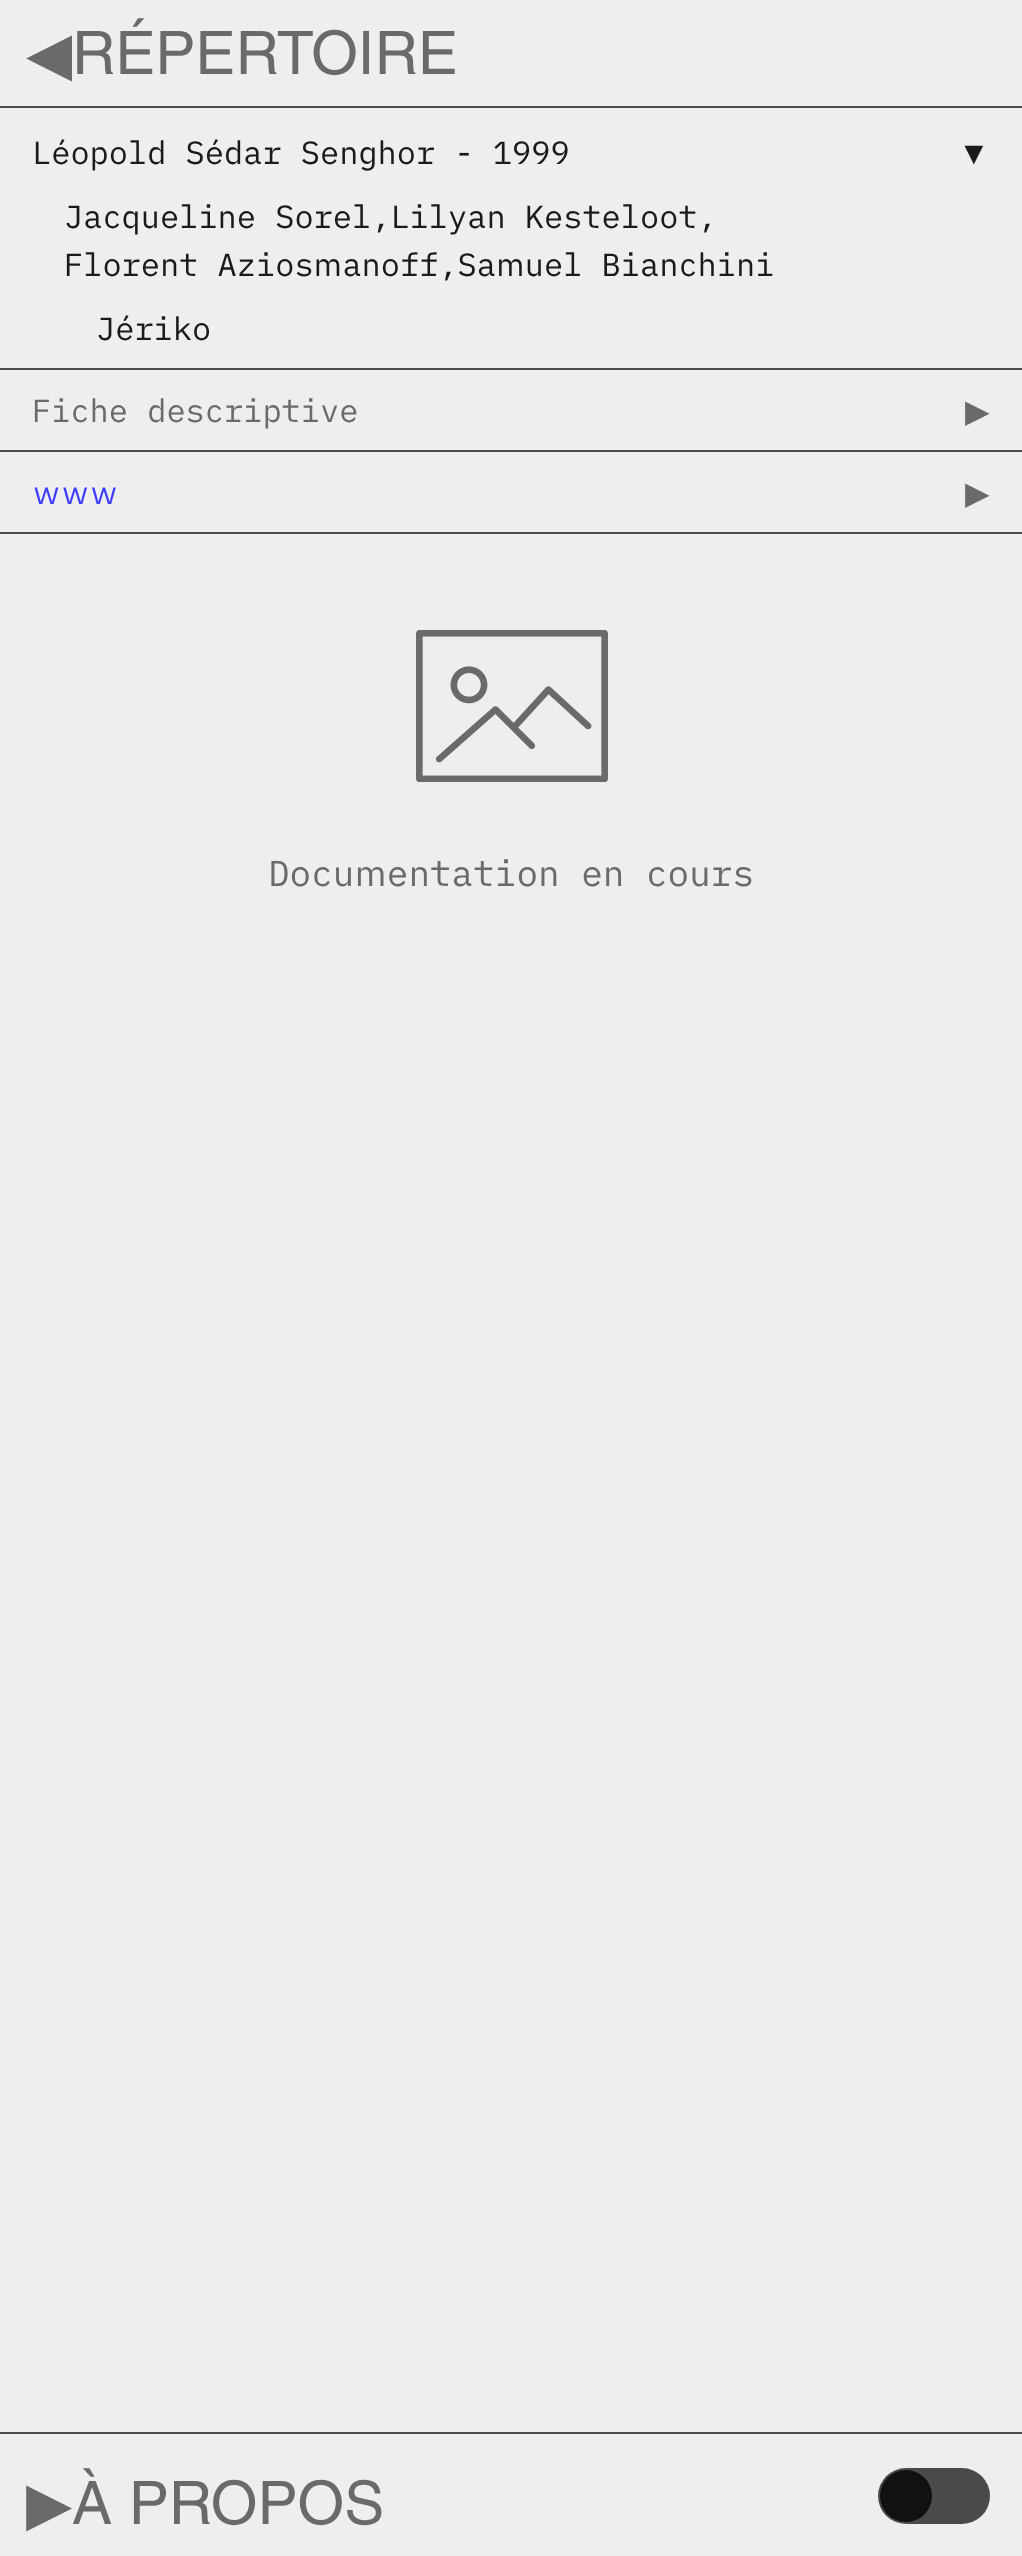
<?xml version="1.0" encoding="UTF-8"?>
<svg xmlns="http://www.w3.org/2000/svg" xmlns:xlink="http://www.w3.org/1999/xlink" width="1022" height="2556">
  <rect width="100%" height="100%" fill="#eeeeef" />
  <rect y="106" width="1022" height="2" fill="#4a4a4a" />
  <rect y="368" width="1022" height="2" fill="#4a4a4a" />
  <rect y="450" width="1022" height="2" fill="#4a4a4a" />
  <rect y="532" width="1022" height="2" fill="#4a4a4a" />
  <image x="416" y="630" width="192" height="152" xlink:href="image1.png" />
  <rect y="2432" width="1022" height="2" fill="#4a4a4a" />
  <rect x="878" y="2468" width="112" height="56" rx="28" fill="#4a4a4a" />
  <circle cx="906" cy="2496" r="26" fill="#121012" />
  <text x="26" y="74" style="font-family: DejaVu Sans; font-size: 60px; fill: #6b6a6b">◀︎</text>
  <text x="72" y="74" style="font-family: Helvetica; font-size: 60px; fill: #6b6a6b">RÉPERTOIRE</text>
  <text x="32" y="164" style="font-family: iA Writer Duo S; font-size: 32px; fill: #1b191b">Léopold Sédar Senghor - 1999</text>
  <text x="958" y="164" style="font-family: Liberation Serif; font-size: 32px; fill: #1b191b">▼︎</text>
  <text x="64" y="228" style="font-family: iA Writer Duo S; font-size: 32px; fill: #1b191b">Jacqueline Sorel,Lilyan Kesteloot,</text>
  <text x="64" y="276" style="font-family: iA Writer Duo S; font-size: 32px; fill: #1b191b">Florent Aziosmanoff,Samuel Bianchini</text>
  <text x="96" y="340" style="font-family: iA Writer Duo S; font-size: 32px; fill: #1b191b">Jériko</text>
  <text x="32" y="422" style="font-family: iA Writer Duo S; font-size: 32px; fill: #6b6a6b">Fiche descriptive</text>
  <text x="965" y="422" style="font-family: DejaVu Sans; font-size: 32px; fill: #6b6a6b">▶︎</text>
  <text x="32" y="504" style="font-family: iA Writer Duo S; font-size: 32px; fill: #3e3cff">www</text>
  <text x="965" y="504" style="font-family: DejaVu Sans; font-size: 32px; fill: #6b6a6b">▶︎</text>
  <text x="268" y="886" style="font-family: iA Writer Duo S; font-size: 36px; fill: #6b6a6b">Documentation en cours</text>
  <text x="26" y="2524" style="font-family: DejaVu Sans; font-size: 60px; fill: #6b6a6b">▶︎</text>
  <text x="72" y="2524" style="font-family: Helvetica; font-size: 60px; fill: #6b6a6b">À PROPOS</text>
</svg>
